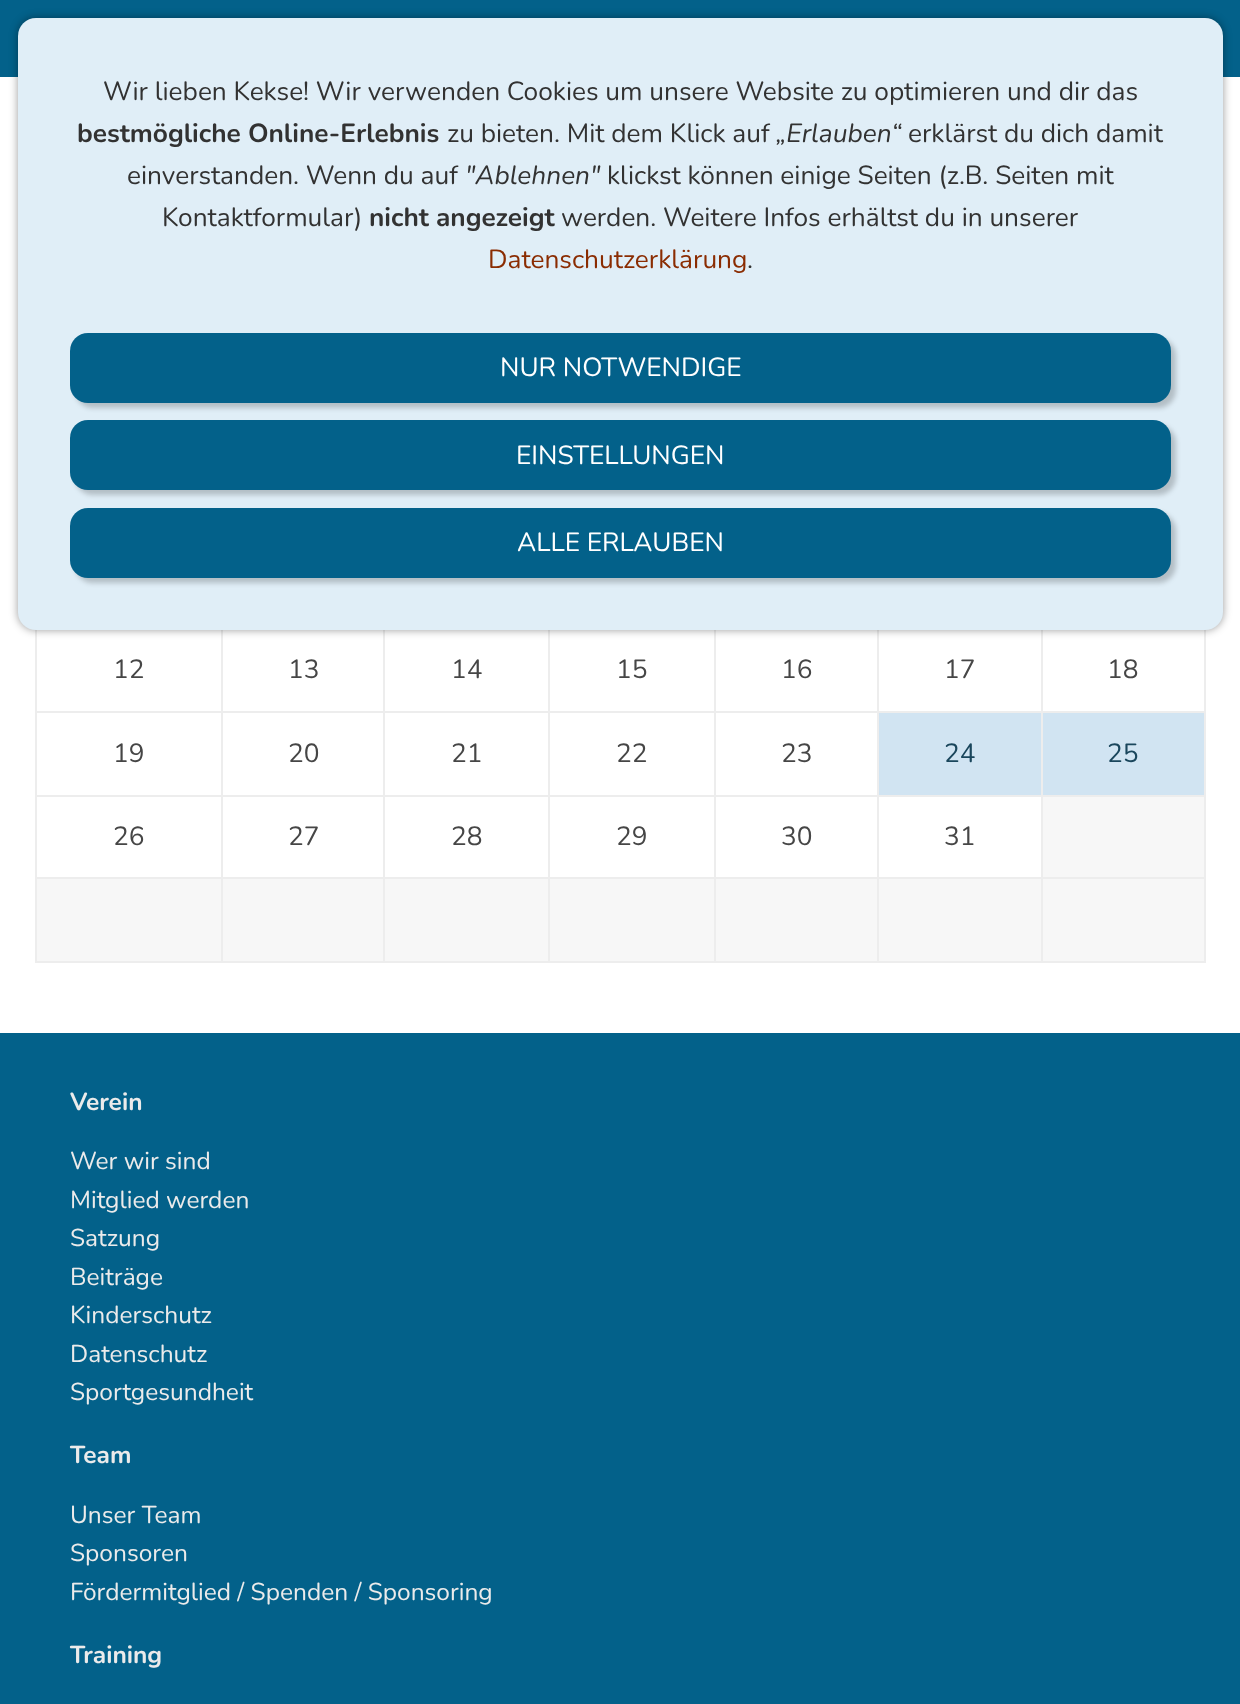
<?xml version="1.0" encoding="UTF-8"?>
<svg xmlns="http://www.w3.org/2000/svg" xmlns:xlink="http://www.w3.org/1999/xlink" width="1240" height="1704">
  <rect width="100%" height="100%" fill="#ffffff" />
  <rect width="1240" height="77" fill="#03618a" />
  <rect x="1204" y="629" width="2" height="334" fill="#ededed" />
  <rect x="35" y="961" width="1171" height="2" fill="#ededed" />
  <rect x="35" y="629" width="2" height="334" fill="#ededed" />
  <rect x="1041" y="711" width="165" height="2" fill="#ededed" />
  <rect x="1041" y="795" width="165" height="2" fill="#ededed" />
  <rect x="1041" y="877" width="165" height="2" fill="#ededed" />
  <rect x="1041" y="877" width="2" height="86" fill="#ededed" />
  <rect x="877" y="877" width="166" height="2" fill="#ededed" />
  <rect x="1041" y="795" width="2" height="84" fill="#ededed" />
  <rect x="877" y="795" width="166" height="2" fill="#ededed" />
  <rect x="1041" y="711" width="2" height="85" fill="#ededed" />
  <rect x="877" y="711" width="166" height="2" fill="#ededed" />
  <rect x="877" y="877" width="2" height="86" fill="#ededed" />
  <rect x="714" y="877" width="165" height="2" fill="#ededed" />
  <rect x="877" y="795" width="2" height="84" fill="#ededed" />
  <rect x="714" y="795" width="165" height="2" fill="#ededed" />
  <rect x="877" y="711" width="2" height="85" fill="#ededed" />
  <rect x="714" y="711" width="165" height="2" fill="#ededed" />
  <rect x="714" y="877" width="2" height="86" fill="#ededed" />
  <rect x="548" y="877" width="168" height="2" fill="#ededed" />
  <rect x="714" y="795" width="2" height="84" fill="#ededed" />
  <rect x="548" y="795" width="168" height="2" fill="#ededed" />
  <rect x="714" y="711" width="2" height="85" fill="#ededed" />
  <rect x="548" y="711" width="168" height="2" fill="#ededed" />
  <rect x="548" y="877" width="2" height="86" fill="#ededed" />
  <rect x="383" y="877" width="167" height="2" fill="#ededed" />
  <rect x="548" y="795" width="2" height="84" fill="#ededed" />
  <rect x="383" y="795" width="167" height="2" fill="#ededed" />
  <rect x="548" y="711" width="2" height="85" fill="#ededed" />
  <rect x="383" y="711" width="167" height="2" fill="#ededed" />
  <rect x="383" y="877" width="2" height="86" fill="#ededed" />
  <rect x="221" y="877" width="164" height="2" fill="#ededed" />
  <rect x="383" y="795" width="2" height="84" fill="#ededed" />
  <rect x="221" y="795" width="164" height="2" fill="#ededed" />
  <rect x="383" y="711" width="2" height="85" fill="#ededed" />
  <rect x="221" y="711" width="164" height="2" fill="#ededed" />
  <rect x="221" y="877" width="2" height="86" fill="#ededed" />
  <rect x="35" y="877" width="187" height="2" fill="#ededed" />
  <rect x="221" y="795" width="2" height="84" fill="#ededed" />
  <rect x="35" y="795" width="187" height="2" fill="#ededed" />
  <rect x="221" y="711" width="2" height="85" fill="#ededed" />
  <rect x="35" y="711" width="187" height="2" fill="#ededed" />
  <rect x="221" y="627" width="2" height="85" fill="#ededed" />
  <rect x="383" y="627" width="2" height="85" fill="#ededed" />
  <rect x="548" y="627" width="2" height="85" fill="#ededed" />
  <rect x="714" y="627" width="2" height="85" fill="#ededed" />
  <rect x="877" y="627" width="2" height="85" fill="#ededed" />
  <rect x="1041" y="627" width="2" height="85" fill="#ededed" />
  <rect x="18" y="18" width="1205" height="612" rx="18" fill="#000000" fill-opacity="0.4" filter="blur(4.5px)" />
  <rect x="18" y="18" width="1205" height="612" rx="18" fill="#e0eef7" />
  <rect x="75" y="338" width="1101" height="70" rx="18" fill="#000000" fill-opacity="0.2" filter="blur(2.5px)" />
  <rect x="70" y="333" width="1101" height="70" rx="18" fill="#03618a" />
  <rect x="75" y="425" width="1101" height="70" rx="18" fill="#000000" fill-opacity="0.2" filter="blur(2.5px)" />
  <rect x="70" y="420" width="1101" height="70" rx="18" fill="#03618a" />
  <rect x="75" y="513" width="1101" height="70" rx="18" fill="#000000" fill-opacity="0.2" filter="blur(2.5px)" />
  <rect x="70" y="508" width="1101" height="70" rx="18" fill="#03618a" />
  <rect x="879" y="713" width="162" height="82" fill="#d1e4f2" />
  <rect x="1043" y="713" width="161" height="82" fill="#d1e4f2" />
  <rect x="1043" y="797" width="161" height="80" fill="#f7f7f7" />
  <rect x="37" y="879" width="184" height="82" fill="#f7f7f7" />
  <rect x="223" y="879" width="160" height="82" fill="#f7f7f7" />
  <rect x="385" y="879" width="163" height="82" fill="#f7f7f7" />
  <rect x="550" y="879" width="164" height="82" fill="#f7f7f7" />
  <rect x="716" y="879" width="161" height="82" fill="#f7f7f7" />
  <rect x="879" y="879" width="162" height="82" fill="#f7f7f7" />
  <rect x="1043" y="879" width="161" height="82" fill="#f7f7f7" />
  <rect y="1033" width="1240" height="671" fill="#03618a" />
  <text x="103" y="100" style="font-family: Nunito; font-size: 26.25px; fill: #323232">Wir lieben Kekse! Wir verwenden Cookies um unsere Website zu optimieren und dir das</text>
  <text x="77" y="142" style="font-family: Nunito; font-size: 26.25px; font-weight: bold; fill: #323232">bestmögliche Online-Erlebnis</text>
  <text x="447" y="142" style="font-family: Nunito; font-size: 26.25px; fill: #323232">zu bieten. Mit dem Klick auf</text>
  <text x="776" y="142" style="font-family: Nunito; font-size: 26.25px; font-style: italic; fill: #323232">„Erlauben“</text>
  <text x="908" y="142" style="font-family: Nunito; font-size: 26.25px; fill: #323232">erklärst du dich damit</text>
  <text x="127" y="184" style="font-family: Nunito; font-size: 26.25px; fill: #323232">einverstanden. Wenn du auf</text>
  <text x="465" y="184" style="font-family: Nunito; font-size: 26.25px; font-style: italic; fill: #323232">"Ablehnen"</text>
  <text x="607" y="184" style="font-family: Nunito; font-size: 26.25px; fill: #323232">klickst können einige Seiten (z.B. Seiten mit</text>
  <text x="162" y="226" style="font-family: Nunito; font-size: 26.25px; fill: #323232">Kontaktformular)</text>
  <text x="369" y="226" style="font-family: Nunito; font-size: 26.25px; font-weight: bold; fill: #323232">nicht angezeigt</text>
  <text x="561" y="226" style="font-family: Nunito; font-size: 26.25px; fill: #323232">werden. Weitere Infos erhältst du in unserer</text>
  <text x="488" y="268" style="font-family: Nunito; font-size: 26.25px; fill: #8a2c02">Datenschutzerklärung</text>
  <text x="747" y="268" style="font-family: Nunito; font-size: 26.25px; fill: #323232">.</text>
  <text x="500" y="376" style="font-family: Nunito; font-size: 26.25px; fill: #ffffff">NUR NOTWENDIGE</text>
  <text x="516" y="464" style="font-family: Nunito; font-size: 26.25px; fill: #ffffff">EINSTELLUNGEN</text>
  <text x="517" y="551" style="font-family: Nunito; font-size: 26.25px; fill: #ffffff">ALLE ERLAUBEN</text>
  <text x="113" y="678" style="font-family: Nunito; font-size: 26.25px; fill: #464646">12</text>
  <text x="288" y="678" style="font-family: Nunito; font-size: 26.25px; fill: #464646">13</text>
  <text x="451" y="678" style="font-family: Nunito; font-size: 26.25px; fill: #464646">14</text>
  <text x="616" y="678" style="font-family: Nunito; font-size: 26.25px; fill: #464646">15</text>
  <text x="781" y="678" style="font-family: Nunito; font-size: 26.25px; fill: #464646">16</text>
  <text x="944" y="678" style="font-family: Nunito; font-size: 26.25px; fill: #464646">17</text>
  <text x="1107" y="678" style="font-family: Nunito; font-size: 26.25px; fill: #464646">18</text>
  <text x="113" y="762" style="font-family: Nunito; font-size: 26.25px; fill: #464646">19</text>
  <text x="288" y="762" style="font-family: Nunito; font-size: 26.25px; fill: #464646">20</text>
  <text x="451" y="762" style="font-family: Nunito; font-size: 26.25px; fill: #464646">21</text>
  <text x="616" y="762" style="font-family: Nunito; font-size: 26.25px; fill: #464646">22</text>
  <text x="781" y="762" style="font-family: Nunito; font-size: 26.25px; fill: #464646">23</text>
  <text x="944" y="762" style="font-family: Nunito; font-size: 26.25px; fill: #1a465c">24</text>
  <text x="1107" y="762" style="font-family: Nunito; font-size: 26.25px; fill: #1a465c">25</text>
  <text x="113" y="845" style="font-family: Nunito; font-size: 26.25px; fill: #464646">26</text>
  <text x="288" y="845" style="font-family: Nunito; font-size: 26.25px; fill: #464646">27</text>
  <text x="451" y="845" style="font-family: Nunito; font-size: 26.25px; fill: #464646">28</text>
  <text x="616" y="845" style="font-family: Nunito; font-size: 26.25px; fill: #464646">29</text>
  <text x="781" y="845" style="font-family: Nunito; font-size: 26.25px; fill: #464646">30</text>
  <text x="944" y="845" style="font-family: Nunito; font-size: 26.25px; fill: #464646">31</text>
  <text x="70" y="1110" style="font-family: Nunito; font-size: 24.5px; font-weight: bold; fill: #ebebeb">Verein</text>
  <text x="70" y="1169" style="font-family: Nunito; font-size: 24.5px; fill: #ebebeb">Wer wir sind</text>
  <text x="70" y="1208" style="font-family: Nunito; font-size: 24.5px; fill: #ebebeb">Mitglied werden</text>
  <text x="70" y="1246" style="font-family: Nunito; font-size: 24.5px; fill: #ebebeb">Satzung</text>
  <text x="70" y="1285" style="font-family: Nunito; font-size: 24.5px; fill: #ebebeb">Beiträge</text>
  <text x="70" y="1323" style="font-family: Nunito; font-size: 24.5px; fill: #ebebeb">Kinderschutz</text>
  <text x="70" y="1362" style="font-family: Nunito; font-size: 24.5px; fill: #ebebeb">Datenschutz</text>
  <text x="70" y="1400" style="font-family: Nunito; font-size: 24.5px; fill: #ebebeb">Sportgesundheit</text>
  <text x="70" y="1463" style="font-family: Nunito; font-size: 24.5px; font-weight: bold; fill: #ebebeb">Team</text>
  <text x="70" y="1523" style="font-family: Nunito; font-size: 24.5px; fill: #ebebeb">Unser Team</text>
  <text x="70" y="1561" style="font-family: Nunito; font-size: 24.5px; fill: #ebebeb">Sponsoren</text>
  <text x="70" y="1600" style="font-family: Nunito; font-size: 24.5px; fill: #ebebeb">Fördermitglied / Spenden / Sponsoring</text>
  <text x="70" y="1663" style="font-family: Nunito; font-size: 24.5px; font-weight: bold; fill: #ebebeb">Training</text>
</svg>
